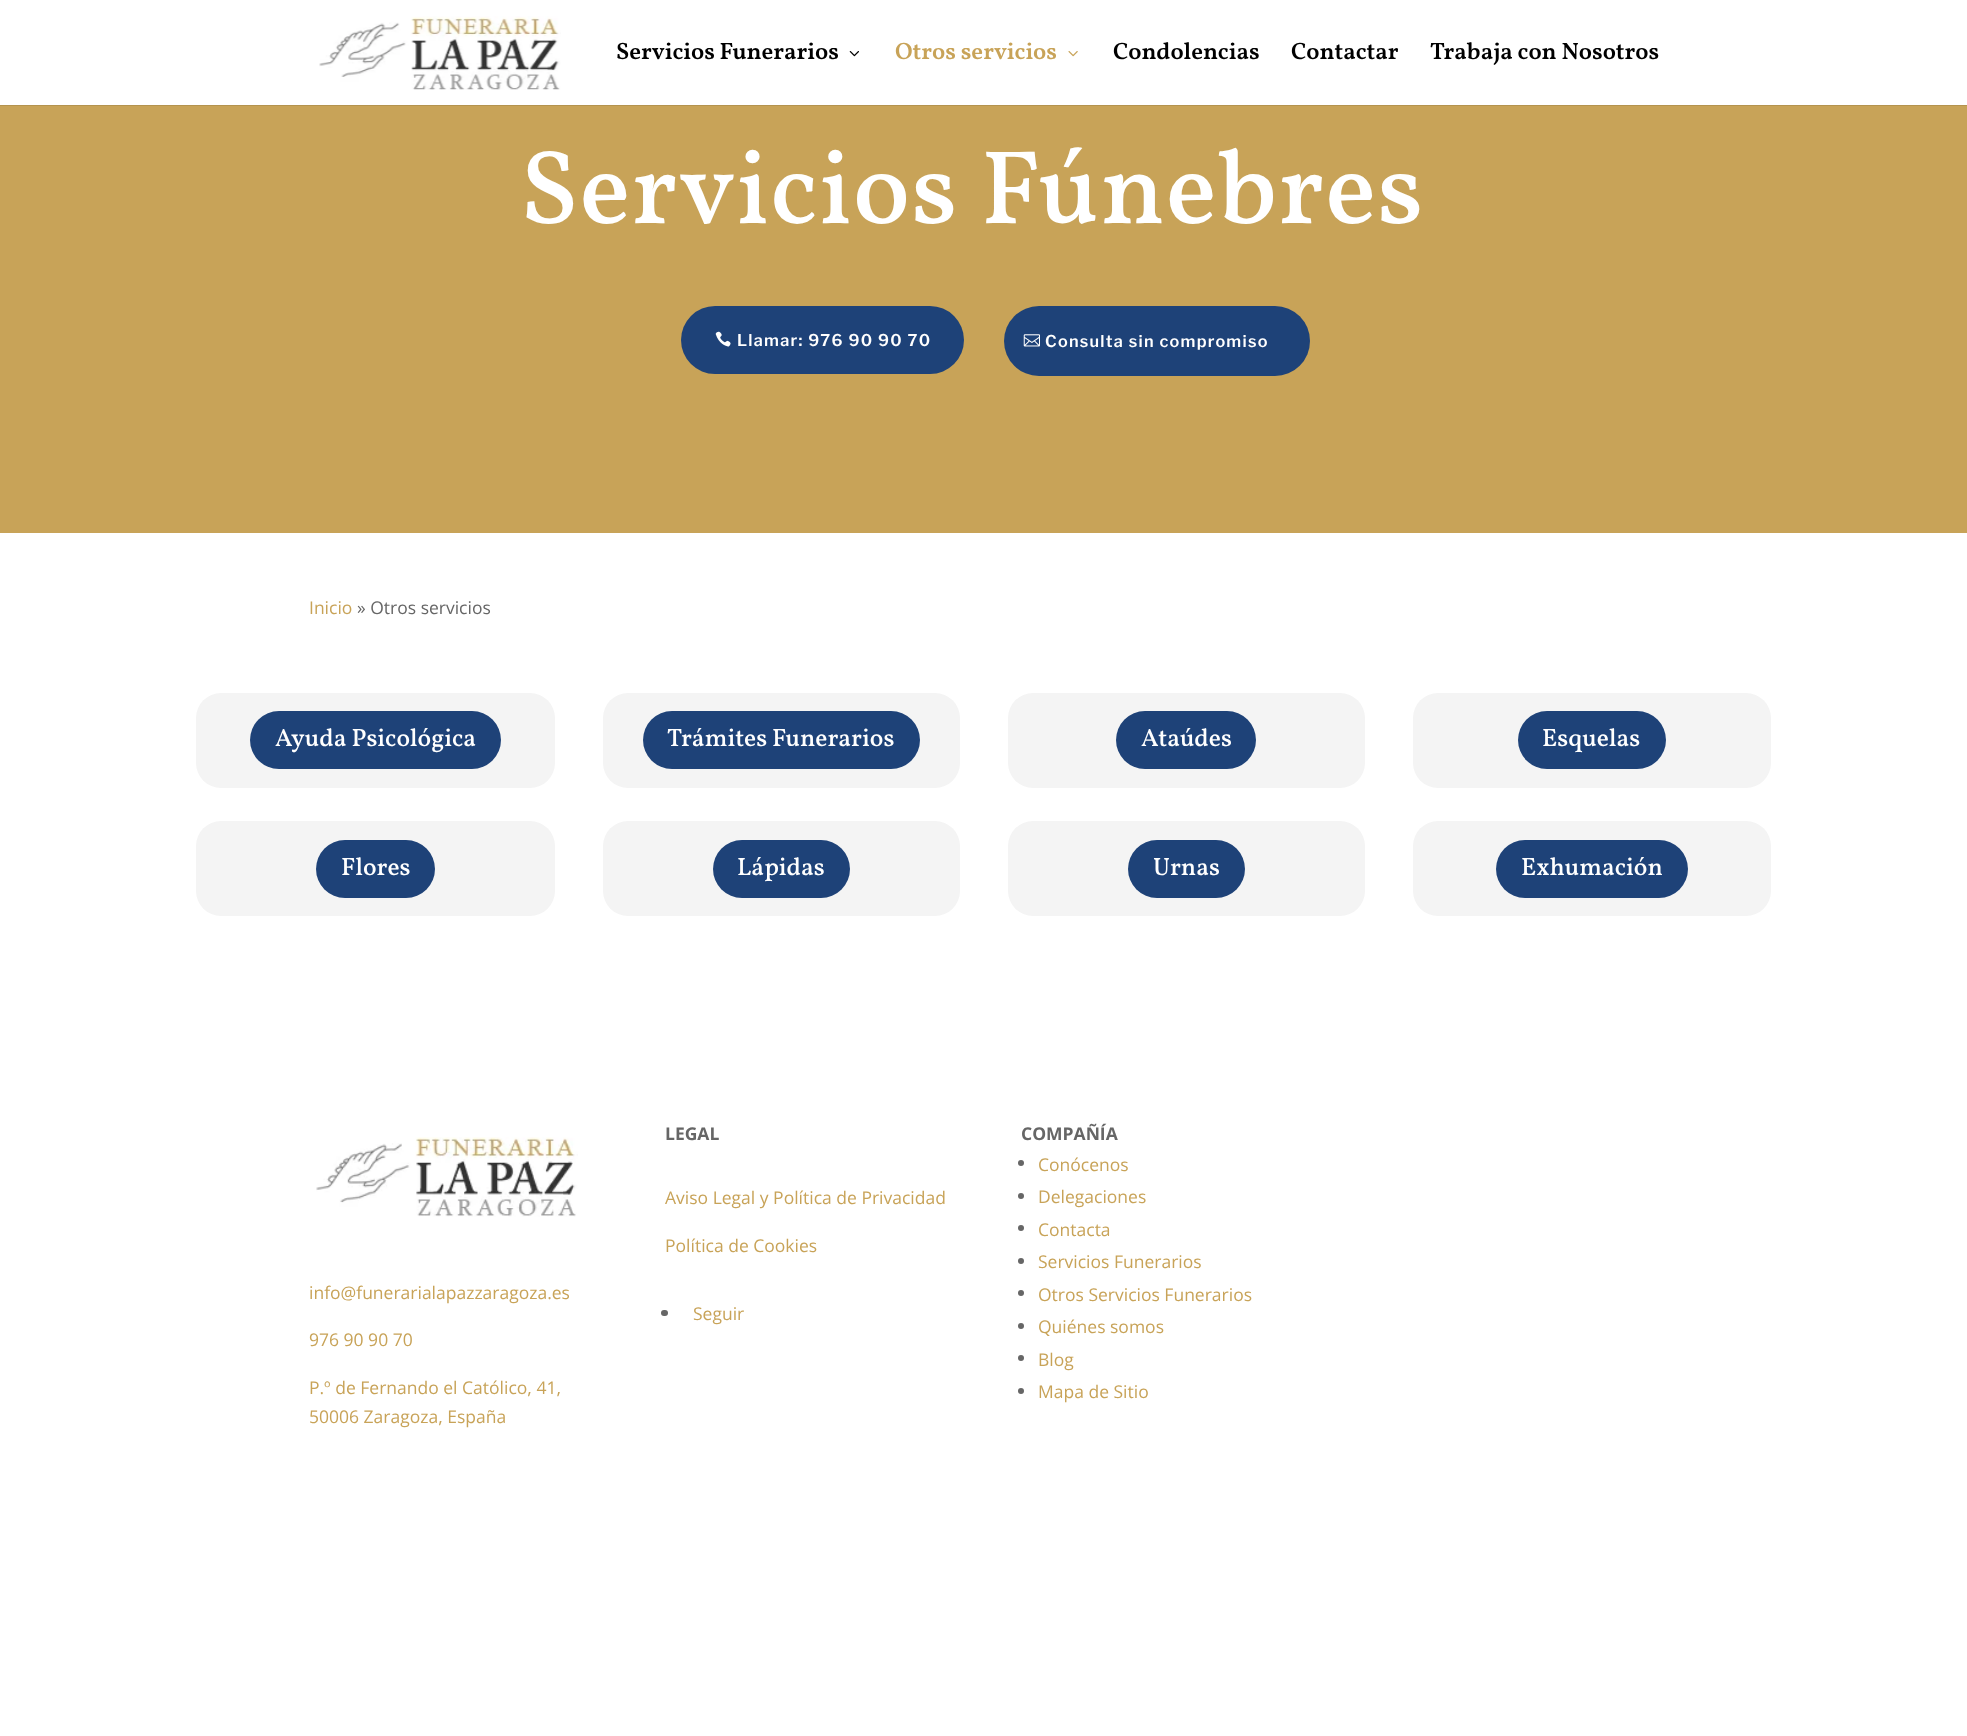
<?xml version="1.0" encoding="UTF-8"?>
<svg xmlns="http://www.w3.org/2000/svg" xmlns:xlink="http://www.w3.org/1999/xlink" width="1967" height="1736">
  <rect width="100%" height="100%" fill="#ffffff" />
  <path d="M 0 105 v 1 h 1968 v -105 v 104 z" fill="#b4934f" />
  <image x="319" y="16" width="242" height="74" xlink:href="image1.png" />
  <image x="849" y="51" width="10" height="6" xlink:href="image2.png" />
  <image x="1068" y="51" width="10" height="6" xlink:href="image3.png" />
  <rect y="106" width="1967" height="427" fill="#c8a358" />
  <rect x="681" y="306" width="283" height="68" rx="34" fill="#1e4278" />
  <image x="715" y="331" width="16" height="16" xlink:href="image4.png" />
  <rect x="1004" y="306" width="306" height="70" rx="35" fill="#1e4278" />
  <image x="1023" y="334" width="17" height="13" xlink:href="image5.png" />
  <rect x="196" y="693" width="359" height="95" rx="25" fill="#f4f4f4" />
  <rect x="250" y="711" width="251" height="58" rx="29" fill="#1e4278" />
  <rect x="603" y="693" width="357" height="95" rx="25" fill="#f4f4f4" />
  <rect x="643" y="711" width="277" height="58" rx="29" fill="#1e4278" />
  <rect x="1008" y="693" width="357" height="95" rx="25" fill="#f4f4f4" />
  <rect x="1116" y="711" width="140" height="58" rx="29" fill="#1e4278" />
  <rect x="1413" y="693" width="358" height="95" rx="25" fill="#f4f4f4" />
  <rect x="1518" y="711" width="148" height="58" rx="29" fill="#1e4278" />
  <rect x="196" y="821" width="359" height="95" rx="25" fill="#f4f4f4" />
  <rect x="316" y="840" width="119" height="58" rx="29" fill="#1e4278" />
  <rect x="603" y="821" width="357" height="95" rx="25" fill="#f4f4f4" />
  <rect x="713" y="840" width="137" height="58" rx="29" fill="#1e4278" />
  <rect x="1008" y="821" width="357" height="95" rx="25" fill="#f4f4f4" />
  <rect x="1128" y="840" width="117" height="58" rx="29" fill="#1e4278" />
  <rect x="1413" y="821" width="358" height="95" rx="25" fill="#f4f4f4" />
  <rect x="1496" y="840" width="192" height="58" rx="29" fill="#1e4278" />
  <rect x="661" y="1310" width="7" height="6" rx="3" fill="#666666" />
  <circle cx="1021" cy="1163" r="3" fill="#666666" />
  <circle cx="1021" cy="1196" r="3" fill="#666666" />
  <circle cx="1021" cy="1228" r="3" fill="#666666" />
  <circle cx="1021" cy="1261" r="3" fill="#666666" />
  <circle cx="1021" cy="1293" r="3" fill="#666666" />
  <circle cx="1021" cy="1326" r="3" fill="#666666" />
  <circle cx="1021" cy="1358" r="3" fill="#666666" />
  <circle cx="1021" cy="1391" r="3" fill="#666666" />
  <image x="316" y="1137" width="262" height="80" xlink:href="image6.png" />
  <text x="616" y="59" style="font-family: Vollkorn; font-size: 23.75px; font-weight: 600; fill: #000000">Servicios Funerarios</text>
  <text x="895" y="59" style="font-family: Vollkorn; font-size: 23.75px; font-weight: 600; fill: #c8a358">Otros servicios</text>
  <text x="1113" y="59" style="font-family: Vollkorn; font-size: 23.75px; font-weight: 600; fill: #000000">Condolencias</text>
  <text x="1291" y="59" style="font-family: Vollkorn; font-size: 23.75px; font-weight: 600; fill: #000000">Contactar</text>
  <text x="1430" y="59" style="font-family: Vollkorn; font-size: 23.75px; font-weight: 600; fill: #000000">Trabaja con Nosotros</text>
  <text x="520" y="223" style="font-family: Vollkorn; font-size: 105px; font-weight: 500; letter-spacing: 1.25px; fill: #ffffff">Servicios Fúnebres</text>
  <text x="737" y="346" style="font-family: Libre Franklin; font-size: 16.25px; font-weight: 100; letter-spacing: 1.25px; fill: #ffffff">Llamar: 976 90 90 70</text>
  <text x="1045" y="347" style="font-family: Libre Franklin; font-size: 16.25px; font-weight: 100; letter-spacing: 1.25px; fill: #ffffff">Consulta sin compromiso</text>
  <text x="309" y="614" style="font-family: Open Sans; font-size: 17.5px; fill: #c8a358">Inicio</text>
  <text x="357" y="614" style="font-family: Open Sans; font-size: 17.5px; fill: #666666">» Otros servicios</text>
  <text x="275" y="746" style="font-family: Vollkorn; font-size: 25px; font-weight: 500; fill: #ffffff">Ayuda Psicológica</text>
  <text x="667" y="746" style="font-family: Vollkorn; font-size: 25px; font-weight: 500; fill: #ffffff">Trámites Funerarios</text>
  <text x="1141" y="746" style="font-family: Vollkorn; font-size: 25px; font-weight: 500; fill: #ffffff">Ataúdes</text>
  <text x="1542" y="746" style="font-family: Vollkorn; font-size: 25px; font-weight: 500; fill: #ffffff">Esquelas</text>
  <text x="341" y="875" style="font-family: Vollkorn; font-size: 25px; font-weight: 500; fill: #ffffff">Flores</text>
  <text x="737" y="875" style="font-family: Vollkorn; font-size: 25px; font-weight: 500; fill: #ffffff">Lápidas</text>
  <text x="1153" y="875" style="font-family: Vollkorn; font-size: 25px; font-weight: 500; fill: #ffffff">Urnas</text>
  <text x="1521" y="875" style="font-family: Vollkorn; font-size: 25px; font-weight: 500; fill: #ffffff">Exhumación</text>
  <text x="665" y="1140" style="font-family: Open Sans; font-size: 17.5px; font-weight: bold; fill: #666666">LEGAL</text>
  <text x="665" y="1204" style="font-family: Open Sans; font-size: 17.5px; fill: #c8a358">Aviso Legal y Política de Privacidad</text>
  <text x="665" y="1252" style="font-family: Open Sans; font-size: 17.5px; fill: #c8a358">Política de Cookies</text>
  <text x="693" y="1320" style="font-family: Open Sans; font-size: 17.5px; fill: #c8a358">Seguir</text>
  <text x="1021" y="1140" style="font-family: Open Sans; font-size: 17.5px; font-weight: bold; fill: #666666">COMPAÑÍA</text>
  <text x="1038" y="1171" style="font-family: Open Sans; font-size: 17.5px; fill: #c8a358">Conócenos</text>
  <text x="1038" y="1203" style="font-family: Open Sans; font-size: 17.5px; fill: #c8a358">Delegaciones</text>
  <text x="1038" y="1236" style="font-family: Open Sans; font-size: 17.5px; fill: #c8a358">Contacta</text>
  <text x="1038" y="1268" style="font-family: Open Sans; font-size: 17.5px; fill: #c8a358">Servicios Funerarios</text>
  <text x="1038" y="1301" style="font-family: Open Sans; font-size: 17.5px; fill: #c8a358">Otros Servicios Funerarios</text>
  <text x="1038" y="1333" style="font-family: Open Sans; font-size: 17.5px; fill: #c8a358">Quiénes somos</text>
  <text x="1038" y="1366" style="font-family: Open Sans; font-size: 17.5px; fill: #c8a358">Blog</text>
  <text x="1038" y="1398" style="font-family: Open Sans; font-size: 17.5px; fill: #c8a358">Mapa de Sitio</text>
  <text x="309" y="1299" style="font-family: Open Sans; font-size: 17.5px; fill: #c8a358">info@funerarialapazzaragoza.es</text>
  <text x="309" y="1346" style="font-family: Open Sans; font-size: 17.5px; fill: #c8a358">976 90 90 70</text>
  <text x="309" y="1394" style="font-family: Open Sans; font-size: 17.5px; fill: #c8a358">P.º de Fernando el Católico, 41,</text>
  <text x="309" y="1423" style="font-family: Open Sans; font-size: 17.5px; fill: #c8a358">50006 Zaragoza, España</text>
</svg>
